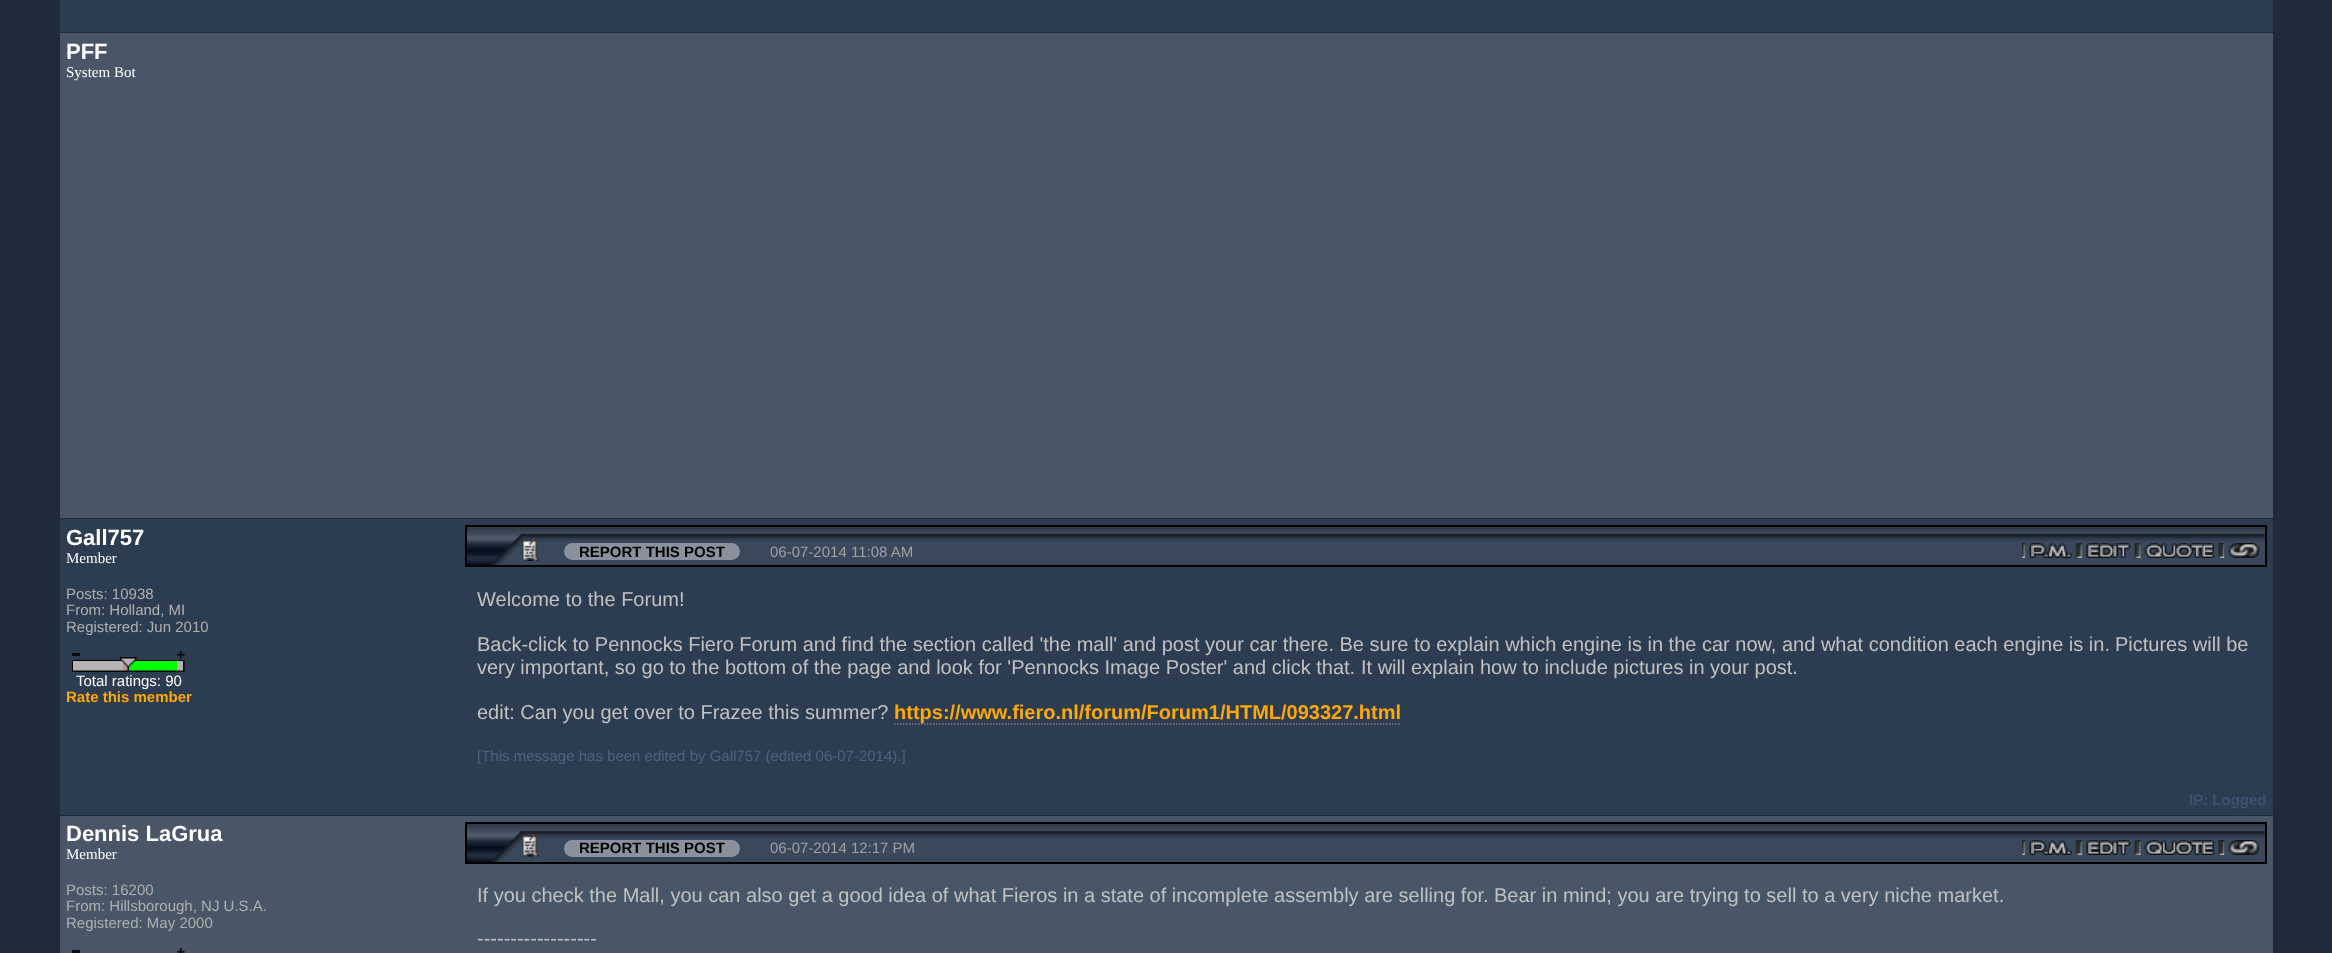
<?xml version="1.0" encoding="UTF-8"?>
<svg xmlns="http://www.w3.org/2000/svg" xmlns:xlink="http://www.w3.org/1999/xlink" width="2332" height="953">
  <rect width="100%" height="100%" fill="#1f2b3a" />
  <rect x="60" width="2213" height="32" fill="#2d3d51" />
  <rect x="60" y="33" width="2213" height="485" fill="#485668" />
  <rect x="60" y="519" width="2213" height="296" fill="#2d3d51" />
  <rect x="72" y="653" width="8" height="3" fill="#090c0f" />
  <image x="177" y="651" width="8" height="8" xlink:href="image1.png" />
  <image x="72" y="660" width="113" height="2" xlink:href="image3.png" />
  <rect x="73" y="661" width="50" height="10" fill="#b4b4b4" />
  <rect x="123" y="661" width="5" height="10" fill="#c39090" />
  <rect x="129" y="661" width="48" height="10" fill="#00ff00" />
  <image x="127" y="665" width="2" height="6" xlink:href="image6.png" />
  <image x="120" y="657" width="17" height="11" xlink:href="image2.png" />
  <image x="72" y="661" width="1" height="10" xlink:href="image4.png" />
  <rect x="177" y="661" width="6" height="10" fill="#b4b4b4" />
  <image x="183" y="661" width="2" height="10" xlink:href="image5.png" />
  <image x="72" y="670" width="113" height="2" xlink:href="image7.png" />
  <image x="467" y="527" width="1798" height="38" xlink:href="image8.png" />
  <rect x="466" y="526" width="1800" height="40" fill="none" stroke="#000000" stroke-width="2" />
  <image x="521" y="538" width="18" height="23" xlink:href="image9.png" />
  <rect x="564" y="543" width="176" height="17" rx="8.5" fill="#88919d" />
  <image x="2022" y="543" width="57" height="15" xlink:href="image10.png" />
  <image x="2079" y="543" width="59" height="15" xlink:href="image11.png" />
  <image x="2137" y="543" width="88" height="15" xlink:href="image12.png" />
  <image x="2224" y="543" width="35" height="15" xlink:href="image13.png" />
  <path d="M 894 724 h 507" fill="none" stroke="#808080" stroke-width="1.5" stroke-dasharray="1.5 1.5" />
  <rect x="60" y="816" width="2213" height="137" fill="#485668" />
  <rect x="72" y="950" width="8" height="3" fill="#0e1014" />
  <image x="177" y="948" width="8" height="5" xlink:href="image14.png" />
  <image x="467" y="824" width="1798" height="38" xlink:href="image8.png" />
  <rect x="466" y="823" width="1800" height="40" fill="none" stroke="#000000" stroke-width="2" />
  <image x="521" y="834" width="18" height="23" xlink:href="image15.png" />
  <rect x="564" y="840" width="176" height="17" rx="8.5" fill="#88919d" />
  <image x="2022" y="840" width="57" height="15" xlink:href="image10.png" />
  <image x="2079" y="840" width="59" height="15" xlink:href="image11.png" />
  <image x="2137" y="840" width="88" height="15" xlink:href="image12.png" />
  <image x="2224" y="840" width="35" height="15" xlink:href="image13.png" />
  <text x="66" y="59" style="font-family: Liberation Sans; font-size: 22px; font-weight: bold; fill: #ffffff">PFF</text>
  <text x="66" y="77" style="font-family: Liberation Serif; font-size: 15px; fill: #ffffff">System Bot</text>
  <text x="66" y="545" style="font-family: Liberation Sans; font-size: 22px; font-weight: bold; fill: #ffffff">Gall757</text>
  <text x="66" y="563" style="font-family: Liberation Serif; font-size: 15px; fill: #ffffff">Member</text>
  <text x="66" y="599" style="font-family: Liberation Sans; font-size: 15px; fill: #afafaf">Posts: 10938</text>
  <text x="66" y="615" style="font-family: Liberation Sans; font-size: 15px; fill: #afafaf">From: Holland, MI</text>
  <text x="66" y="632" style="font-family: Liberation Sans; font-size: 15px; fill: #afafaf">Registered: Jun 2010</text>
  <text x="76" y="686" style="font-family: Liberation Sans; font-size: 15px; fill: #ffffff">Total ratings: 90</text>
  <text x="66" y="702" style="font-family: Liberation Sans; font-size: 15px; font-weight: bold; fill: #ffa800">Rate this member</text>
  <text x="579" y="557" style="font-family: Liberation Sans; font-size: 15px; font-weight: bold; fill: #000000">REPORT THIS POST</text>
  <text x="770" y="557" style="font-family: Liberation Sans; font-size: 15px; fill: #a0a0a0">06-07-2014 11:08 AM</text>
  <text x="477" y="606" style="font-family: Liberation Sans; font-size: 20px; fill: #c1c1c1">Welcome to the Forum!</text>
  <text x="477" y="651" style="font-family: Liberation Sans; font-size: 20px; fill: #c1c1c1">Back-click to Pennocks Fiero Forum and find the section called 'the mall' and post your car there. Be sure to explain which engine is in the car now, and what condition each engine is in.</text>
  <text x="2115" y="651" style="font-family: Liberation Sans; font-size: 20px; fill: #c1c1c1">Pictures will be</text>
  <text x="477" y="674" style="font-family: Liberation Sans; font-size: 20px; fill: #c1c1c1">very important, so go to the bottom of the page and look for 'Pennocks Image Poster' and click that.</text>
  <text x="1361" y="674" style="font-family: Liberation Sans; font-size: 20px; fill: #c1c1c1">It will explain how to include pictures in your post.</text>
  <text x="477" y="719" style="font-family: Liberation Sans; font-size: 20px; fill: #c1c1c1">edit: Can you get over to Frazee this summer?</text>
  <text x="894" y="719" style="font-family: Liberation Sans; font-size: 20px; font-weight: bold; fill: #ffa800">https://www.fiero.nl/forum/Forum1/HTML/093327.html</text>
  <text x="477" y="761" style="font-family: Liberation Sans; font-size: 15px; fill: #506080">[This message has been edited by Gall757 (edited 06-07-2014).]</text>
  <text x="2189" y="805" style="font-family: Liberation Sans; font-size: 15px; font-weight: bold; fill: #405070">IP: Logged</text>
  <text x="66" y="841" style="font-family: Liberation Sans; font-size: 22px; font-weight: bold; fill: #ffffff">Dennis LaGrua</text>
  <text x="66" y="859" style="font-family: Liberation Serif; font-size: 15px; fill: #ffffff">Member</text>
  <text x="66" y="895" style="font-family: Liberation Sans; font-size: 15px; fill: #afafaf">Posts: 16200</text>
  <text x="66" y="911" style="font-family: Liberation Sans; font-size: 15px; fill: #afafaf">From: Hillsborough, NJ U.S.A.</text>
  <text x="66" y="928" style="font-family: Liberation Sans; font-size: 15px; fill: #afafaf">Registered: May 2000</text>
  <text x="579" y="853" style="font-family: Liberation Sans; font-size: 15px; font-weight: bold; fill: #000000">REPORT THIS POST</text>
  <text x="770" y="853" style="font-family: Liberation Sans; font-size: 15px; fill: #a0a0a0">06-07-2014 12:17 PM</text>
  <text x="477" y="902" style="font-family: Liberation Sans; font-size: 20px; fill: #c1c1c1">If you check the Mall, you can also get a good idea of what Fieros in a state of incomplete assembly are selling for.</text>
  <text x="1494" y="902" style="font-family: Liberation Sans; font-size: 20px; fill: #c1c1c1">Bear in mind; you are trying to sell to a very niche market.</text>
  <text x="477" y="945" style="font-family: Liberation Sans; font-size: 20px; fill: #c1c1c1">------------------</text>
</svg>
